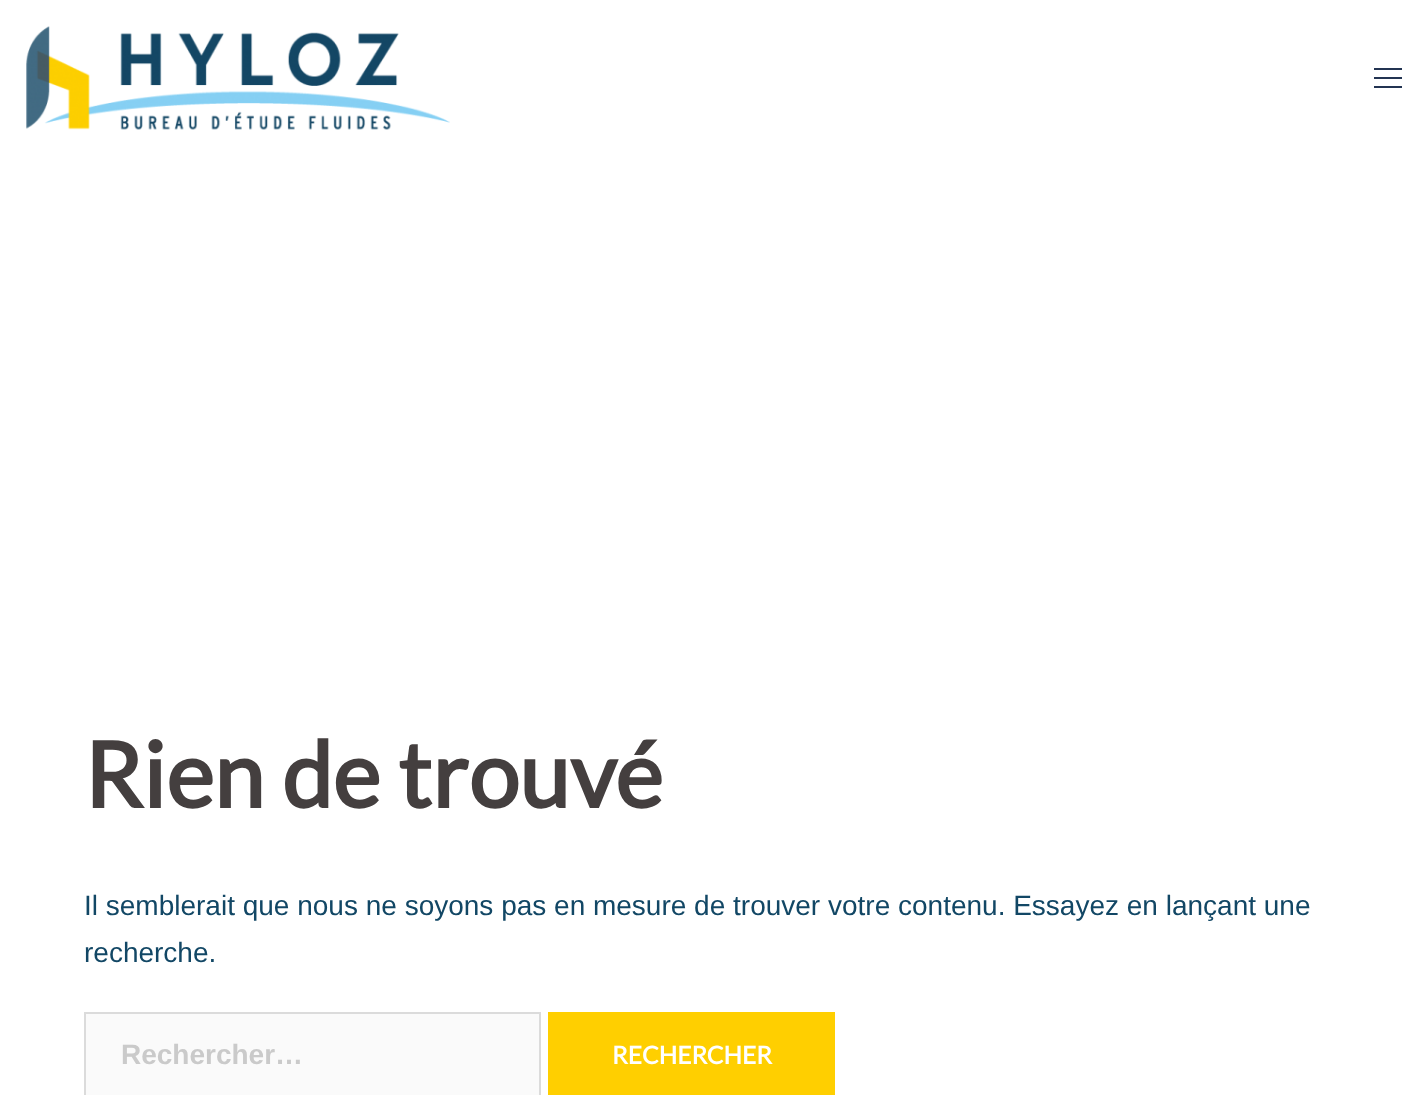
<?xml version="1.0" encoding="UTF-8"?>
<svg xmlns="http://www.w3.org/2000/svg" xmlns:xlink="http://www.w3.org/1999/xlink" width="1428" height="1095">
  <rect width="100%" height="100%" fill="#ffffff" />
  <image x="26" y="26" width="424" height="104" xlink:href="image1.png" />
  <rect x="1374" y="68" width="28" height="2" fill="#233452" />
  <rect x="1374" y="77" width="28" height="2" fill="#233452" />
  <rect x="1374" y="86" width="28" height="2" fill="#233452" />
  <rect x="85" y="1013" width="455" height="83" fill="#fafafa" stroke="#dbdbdb" stroke-width="2" />
  <rect x="548" y="1012" width="287" height="83" fill="#ffcf00" />
  <text x="84" y="808" style="font-family: Lato; font-size: 91px; font-weight: bold; fill: #443f3f">Rien de trouvé</text>
  <text x="84" y="915" style="font-family: Liberation Sans; font-size: 28px; fill: #124765">Il semblerait que nous ne soyons pas en mesure de trouver votre contenu. Essayez en lançant une</text>
  <text x="84" y="962" style="font-family: Liberation Sans; font-size: 28px; fill: #124765">recherche.</text>
  <text x="121" y="1064" style="font-family: Liberation Sans; font-size: 28px; font-weight: bold; fill: #cacaca">Rechercher…</text>
  <text x="612" y="1064" style="font-family: Lato; font-size: 24.5px; font-weight: bold; fill: #ffffff">RECHERCHER</text>
</svg>
